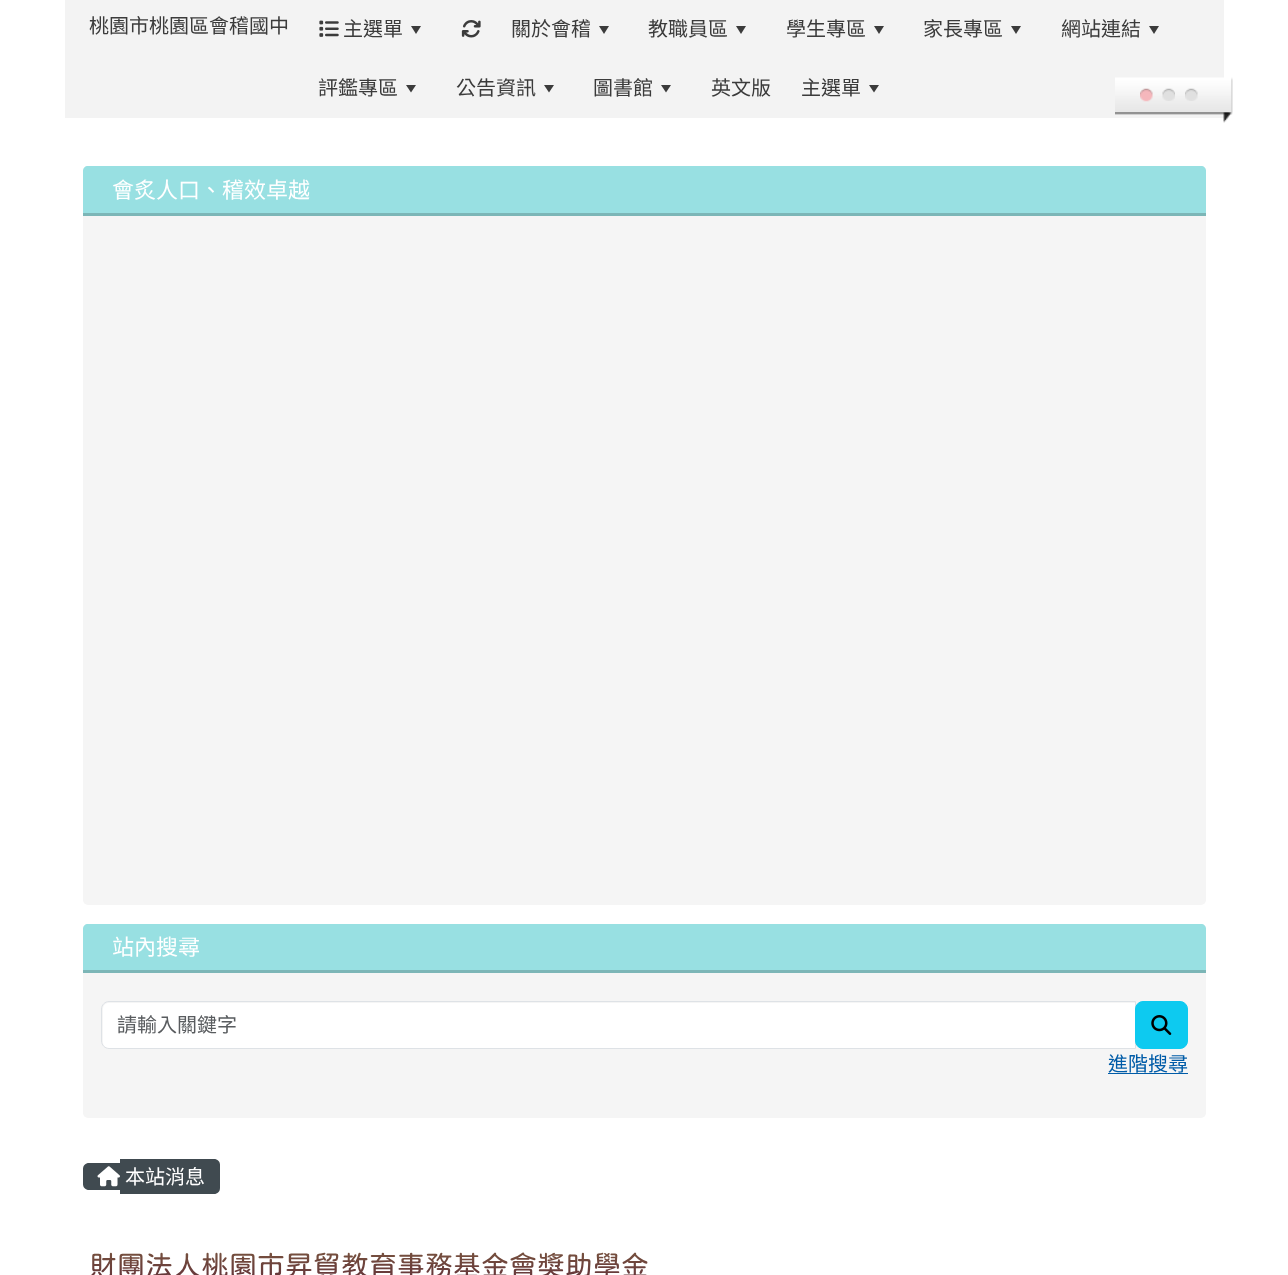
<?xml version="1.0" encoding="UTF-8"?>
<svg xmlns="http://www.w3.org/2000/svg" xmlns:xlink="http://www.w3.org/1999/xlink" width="1288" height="1275">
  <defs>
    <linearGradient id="g1" gradientUnits="userSpaceOnUse" x1="644" y1="1241" x2="644" y2="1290"><stop offset="0" stop-color="#7e5c40" /><stop offset="1" stop-color="#5c2938" /></linearGradient>
  </defs>
  <rect width="100%" height="100%" fill="#ffffff" />
  <rect x="65" width="1159" height="118" fill="#f3f3f3" />
  <image x="319" y="20" width="20" height="17" xlink:href="image1.png" />
  <path d="M 411 26 h 10 l -5 8 z" fill="#3b3b3b" />
  <image x="461" y="20" width="20" height="18" xlink:href="image2.png" />
  <path d="M 599 26 h 10 l -5 8 z" fill="#3b3b3b" />
  <path d="M 736 26 h 10 l -5 8 z" fill="#3b3b3b" />
  <path d="M 874 26 h 10 l -5 8 z" fill="#3b3b3b" />
  <path d="M 1011 26 h 10 l -5 8 z" fill="#3b3b3b" />
  <path d="M 1149 26 h 10 l -5 8 z" fill="#3b3b3b" />
  <path d="M 406 85 h 10 l -5 7.5 z" fill="#3b3b3b" />
  <path d="M 544 85 h 10 l -5 7.5 z" fill="#3b3b3b" />
  <path d="M 661 85 h 10 l -5 7.5 z" fill="#3b3b3b" />
  <path d="M 869 85 h 10 l -5 7.5 z" fill="#3b3b3b" />
  <image x="1115" y="77" width="118" height="46" xlink:href="image3.png" />
  <image x="1140" y="88" width="13" height="14" xlink:href="image4.png" />
  <image x="1162" y="88" width="13" height="13" xlink:href="image5.png" />
  <image x="1185" y="88" width="13" height="13" xlink:href="image6.png" />
  <rect x="83" y="166" width="1123" height="739" rx="5" fill="#f5f5f5" />
  <path d="M 88 166 h 1113 c 3 0 5 2 5 5 v 44 h -1123 v -44 c 0 -3 2 -5 5 -5 z" fill="#98e0e2" />
  <rect x="83" y="213" width="1123" height="3" fill="#7cb6b7" />
  <rect x="83" y="924" width="1123" height="194" rx="5" fill="#f5f5f5" />
  <path d="M 88 924 h 1113 c 3 0 5 2 5 5 v 44 h -1123 v -44 c 0 -3 2 -5 5 -5 z" fill="#98e0e2" />
  <rect x="83" y="970" width="1123" height="3" fill="#7cb6b7" />
  <path d="M 109 1003 h 1026 v 45 h -1026 c -3.5 0 -6 -2.5 -6 -6 v -33 c 0 -3.5 2.5 -6 6 -6 z" fill="#ffffff" />
  <path d="M 109 1001.5 h 1026.5 v 47 h -1026.5 c -4 0 -7.5 -3.5 -7.5 -7.5 v -32 c 0 -4 3.5 -7.5 7.5 -7.5 z" fill="none" stroke="#dee2e6" />
  <rect x="1135.5" y="1001.5" width="52" height="47" rx="7.5" fill="#0dcaf0" stroke="#0dcaf0" />
  <image x="1151" y="1015" width="21" height="20" xlink:href="image7.png" />
  <rect x="1108" y="1073" width="80" height="1" fill="#005ca8" />
  <path d="M 89 1163 h 31 v 27 h -31 c -3.5 0 -6 -2.5 -6 -6 v -15 c 0 -3.5 2.5 -6 6 -6 z" fill="#404a50" />
  <path d="M 120 1159 h 94 c 3.5 0 6 2.5 6 6 v 23 c 0 3.5 -2.5 6 -6 6 h -94 z" fill="#404a50" />
  <image x="97" y="1166" width="23" height="21" xlink:href="image8.png" />
  <text x="89" y="33" style="font-family: Noto Sans CJK TC; font-size: 20px; fill: #3b3b3b">桃園市桃園區會稽國中</text>
  <text x="343" y="36" style="font-family: Noto Sans CJK TC; font-size: 20px; fill: #3b3b3b">主選單</text>
  <text x="511" y="36" style="font-family: Noto Sans CJK TC; font-size: 20px; fill: #3b3b3b">關於會稽</text>
  <text x="648" y="36" style="font-family: Noto Sans CJK TC; font-size: 20px; fill: #3b3b3b">教職員區</text>
  <text x="786" y="36" style="font-family: Noto Sans CJK TC; font-size: 20px; fill: #3b3b3b">學生專區</text>
  <text x="923" y="36" style="font-family: Noto Sans CJK TC; font-size: 20px; fill: #3b3b3b">家長專區</text>
  <text x="1061" y="36" style="font-family: Noto Sans CJK TC; font-size: 20px; fill: #3b3b3b">網站連結</text>
  <text x="318" y="95" style="font-family: Noto Sans CJK TC; font-size: 20px; fill: #3b3b3b">評鑑專區</text>
  <text x="456" y="95" style="font-family: Noto Sans CJK TC; font-size: 20px; fill: #3b3b3b">公告資訊</text>
  <text x="593" y="95" style="font-family: Noto Sans CJK TC; font-size: 20px; fill: #3b3b3b">圖書館</text>
  <text x="711" y="95" style="font-family: Noto Sans CJK TC; font-size: 20px; fill: #3b3b3b">英文版</text>
  <text x="801" y="95" style="font-family: Noto Sans CJK TC; font-size: 20px; fill: #3b3b3b">主選單</text>
  <text x="112" y="198" style="font-family: Noto Sans CJK TC; font-size: 22px; fill: #ffffff">會炙人口、稽效卓越</text>
  <text x="112" y="955" style="font-family: Noto Sans CJK TC; font-size: 22px; fill: #ffffff">站內搜尋</text>
  <text x="117" y="1032" style="font-family: Noto Sans CJK TC; font-size: 20px; fill: #595c5f">請輸入關鍵字</text>
  <text x="1108" y="1071" style="font-family: Noto Sans CJK TC; font-size: 20px; fill: #005ca8">進階搜尋</text>
  <text x="125" y="1184" style="font-family: Noto Sans CJK TC; font-size: 20px; fill: #ffffff">本站消息</text>
  <text x="89" y="1275" style="font-family: 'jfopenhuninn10'; font-size: 28px; fill: url(#g1)">財團法人桃園市昇貿教育事務基金會獎助學金</text>
</svg>
